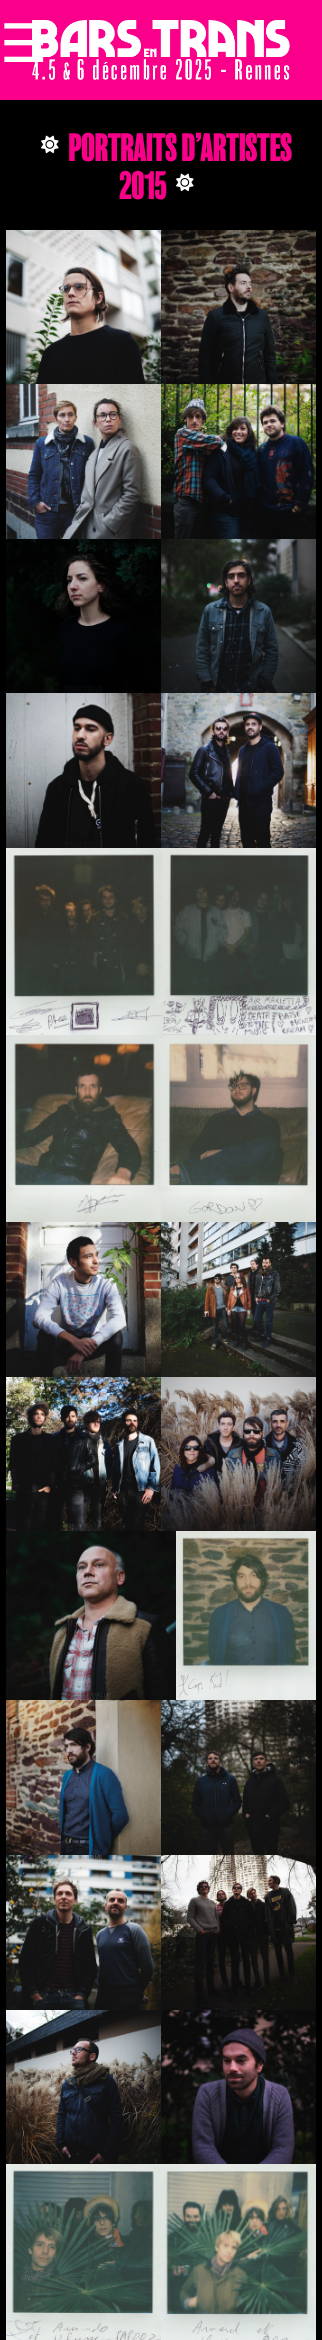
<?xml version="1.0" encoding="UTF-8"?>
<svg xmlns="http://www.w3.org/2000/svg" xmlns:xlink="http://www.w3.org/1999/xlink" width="322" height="2340">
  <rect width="100%" height="100%" fill="#fa008a" />
  <image x="32" y="20" width="258" height="60" xlink:href="image1.png" />
  <rect y="100" width="322" height="2240" fill="#000000" />
  <image x="41" y="135" width="18" height="19" xlink:href="image2.png" />
  <image x="176" y="173" width="18" height="19" xlink:href="image2.png" />
  <image x="6" y="230" width="155" height="154" xlink:href="image3.png" />
  <image x="161" y="230" width="155" height="154" xlink:href="image4.png" />
  <image x="6" y="384" width="155" height="155" xlink:href="image5.png" />
  <image x="161" y="384" width="155" height="155" xlink:href="image6.png" />
  <image x="6" y="539" width="155" height="154" xlink:href="image7.png" />
  <image x="161" y="539" width="155" height="154" xlink:href="image8.png" />
  <image x="6" y="693" width="155" height="155" xlink:href="image9.png" />
  <image x="161" y="693" width="155" height="155" xlink:href="image10.png" />
  <image x="6" y="848" width="157" height="187" xlink:href="image11.png" />
  <image x="163" y="848" width="153" height="187" xlink:href="image12.png" />
  <image x="6" y="1035" width="155" height="187" xlink:href="image13.png" />
  <image x="161" y="1035" width="155" height="187" xlink:href="image14.png" />
  <image x="6" y="1222" width="155" height="155" xlink:href="image15.png" />
  <image x="161" y="1222" width="155" height="155" xlink:href="image16.png" />
  <image x="6" y="1377" width="155" height="154" xlink:href="image17.png" />
  <image x="161" y="1377" width="155" height="154" xlink:href="image18.png" />
  <image x="6" y="1531" width="170" height="169" xlink:href="image19.png" />
  <image x="176" y="1531" width="140" height="169" xlink:href="image20.png" />
  <image x="6" y="1700" width="155" height="155" xlink:href="image21.png" />
  <image x="161" y="1700" width="155" height="155" xlink:href="image22.png" />
  <image x="6" y="1855" width="155" height="155" xlink:href="image23.png" />
  <image x="161" y="1855" width="155" height="155" xlink:href="image24.png" />
  <image x="6" y="2010" width="155" height="154" xlink:href="image25.png" />
  <image x="161" y="2010" width="155" height="154" xlink:href="image26.png" />
  <image x="6" y="2164" width="155" height="176" xlink:href="image27.png" />
  <image x="161" y="2164" width="155" height="176" xlink:href="image28.png" />
  <text x="0" y="62" style="font-family: DejaVu Sans; font-size: 53px; fill: #ffffff">☰</text>
  <text x="68" y="161" style="font-family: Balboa; font-size: 35.25px; font-weight: bold; fill: #fa008a">PORTRAITS D’ARTISTES</text>
  <text x="119" y="199" style="font-family: Balboa; font-size: 35.25px; font-weight: bold; fill: #fa008a">2015</text>
</svg>
